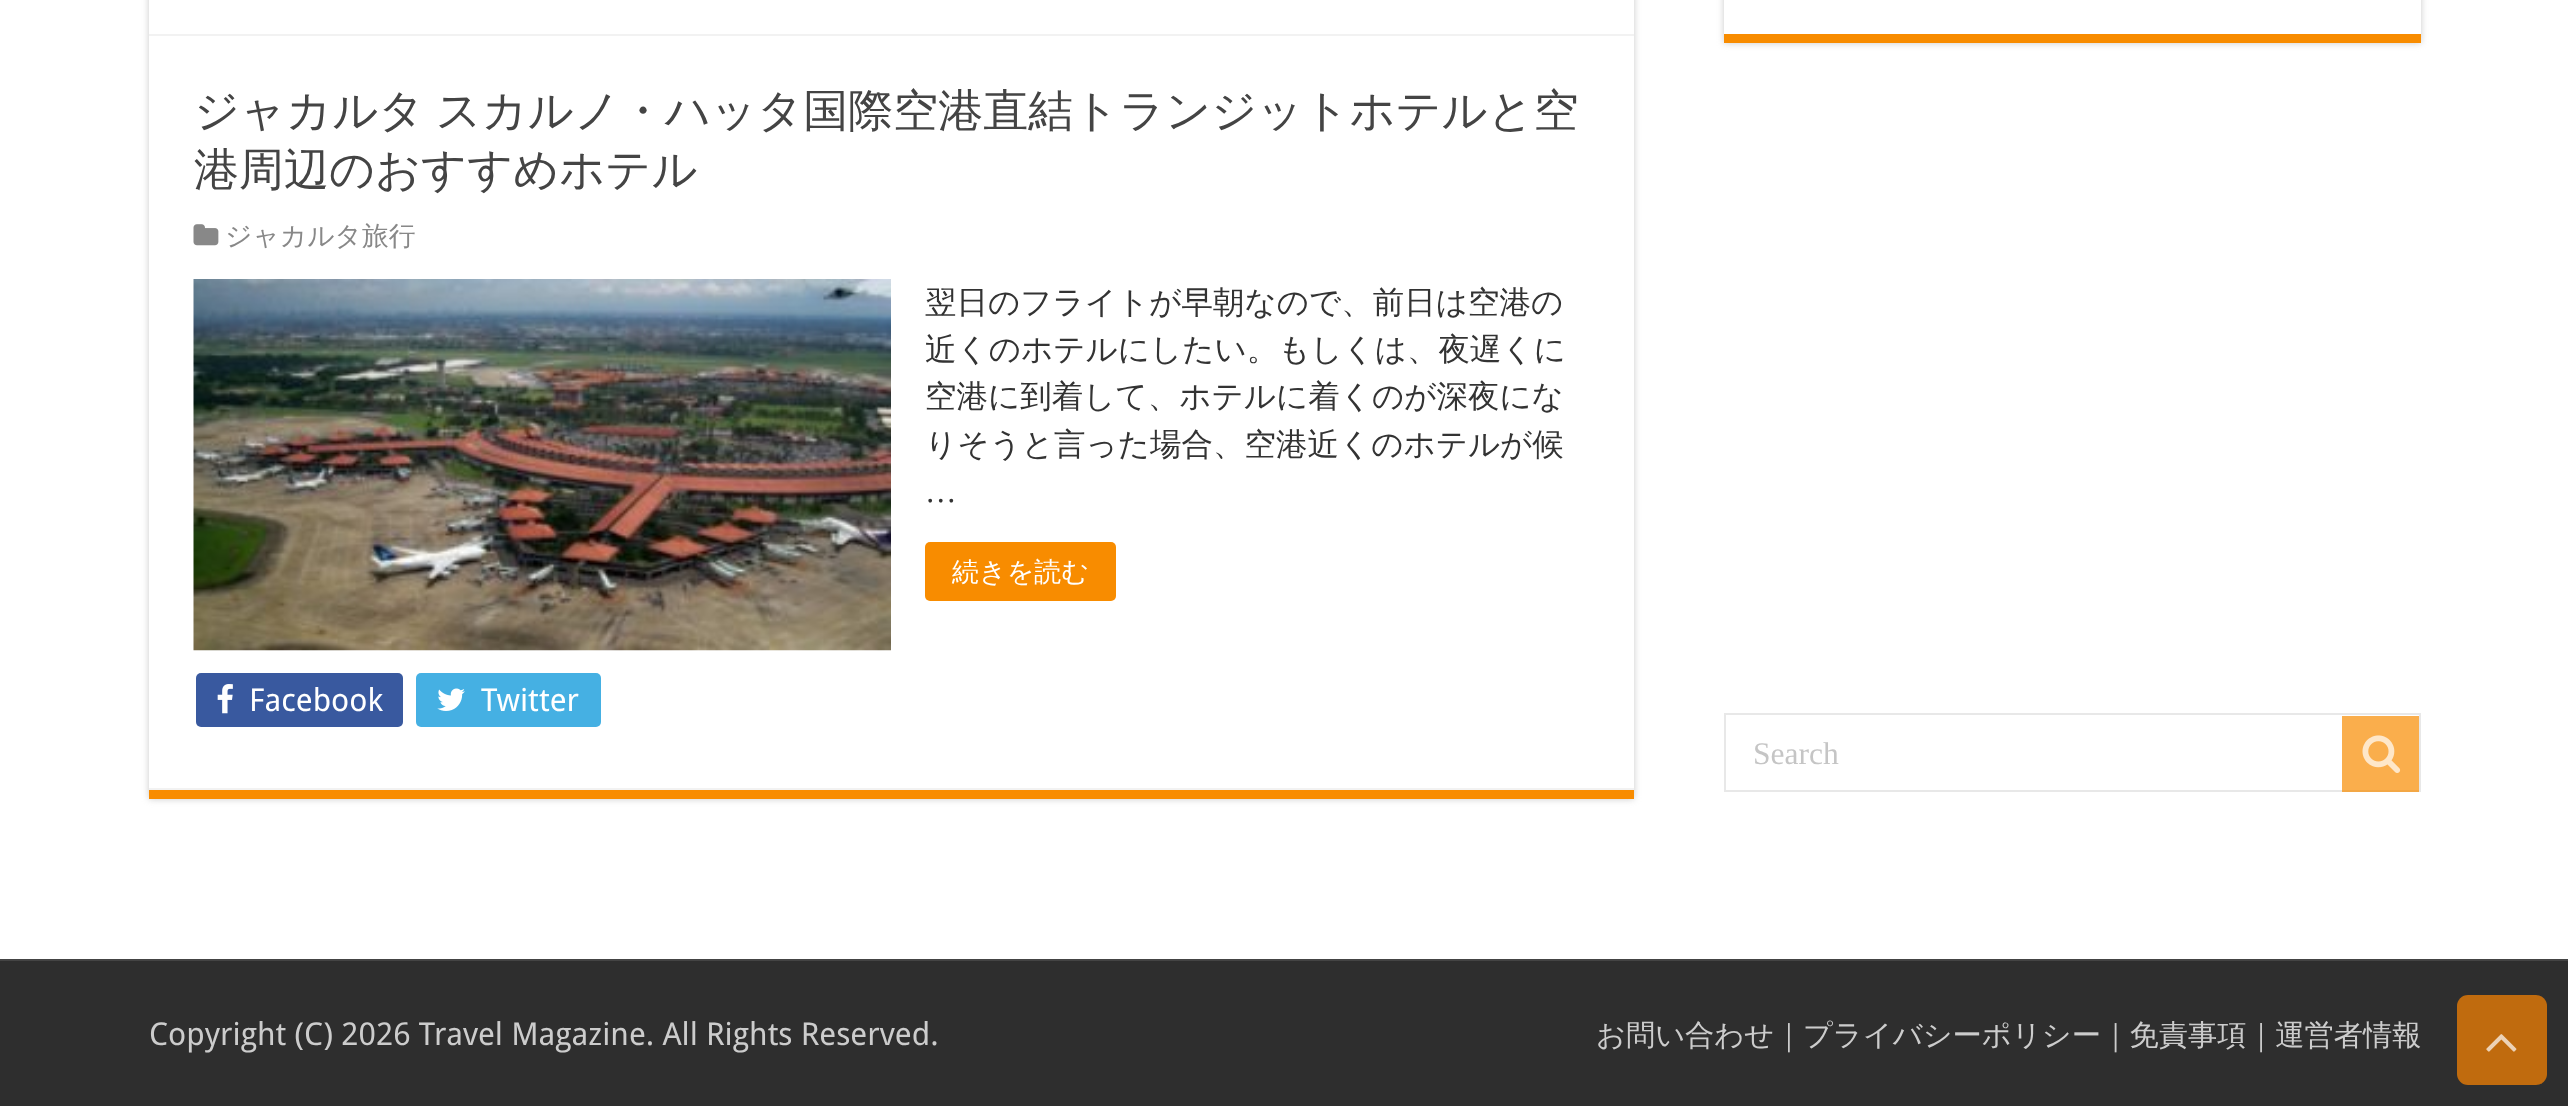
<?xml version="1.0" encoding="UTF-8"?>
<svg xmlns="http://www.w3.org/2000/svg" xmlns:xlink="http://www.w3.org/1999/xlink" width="2568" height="1106">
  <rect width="100%" height="100%" fill="#ffffff" />
  <rect x="149" y="-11" width="1485" height="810" fill="#cacaca" filter="blur(3.5px)" />
  <rect x="149" width="1485" height="788" fill="#ffffff" />
  <rect x="149" y="790" width="1485" height="9" fill="#f88c00" />
  <rect x="149" y="34" width="1485" height="2" fill="#f2f2f2" />
  <rect x="149" y="788" width="1485" height="2" fill="#f2f2f2" />
  <image x="193" y="224" width="26" height="22" xlink:href="image1.png" />
  <image x="193" y="279" width="698" height="372" xlink:href="image2.png" />
  <rect x="925" y="542" width="191" height="59" rx="5" fill="#f88c00" />
  <rect x="196" y="673" width="207" height="54" rx="5" fill="#39599f" />
  <image x="217" y="684" width="16" height="30" xlink:href="image3.png" />
  <rect x="416" y="673" width="185" height="54" rx="5" fill="#45b0e3" />
  <image x="437" y="688" width="28" height="23" xlink:href="image4.png" />
  <rect x="1724" y="-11" width="697" height="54" fill="#cacaca" filter="blur(3.5px)" />
  <rect x="1724" width="697" height="34" fill="#ffffff" />
  <rect x="1724" y="34" width="697" height="9" fill="#f88c00" />
  <rect x="1725" y="714" width="695" height="77" fill="none" stroke="#e8e8e8" stroke-width="2" />
  <rect x="2342" y="716" width="77" height="76" fill="#f88c00" fill-opacity="0.7" />
  <image x="2362" y="735" width="39" height="38" xlink:href="image5.png" />
  <rect y="961" width="2568" height="145" fill="#2e2e2e" />
  <rect y="959" width="2568" height="2" fill="#444444" />
  <rect x="2457" y="995" width="90" height="90" rx="11" fill="#c06b0e" />
  <image x="2486" y="1034" width="31" height="18" xlink:href="image6.png" />
  <text x="194" y="126" word-spacing="-2" style="font-family: WenQuanYi Zen Hei; font-size: 45px; font-weight: 500; fill: #444444">ジャカルタ スカルノ・ハッタ国際空港直結トランジットホテルと空</text>
  <text x="194" y="185" style="font-family: WenQuanYi Zen Hei; font-size: 45px; font-weight: 500; fill: #444444">港周辺のおすすめホテル</text>
  <text x="225" y="245" style="font-family: WenQuanYi Zen Hei; font-size: 26.75px; font-weight: 500; fill: #888888">ジャカルタ旅行</text>
  <text x="925" y="313" style="font-family: WenQuanYi Zen Hei; font-size: 31.5px; font-weight: 500; fill: #333333">翌日のフライトが早朝なので、前日は空港の</text>
  <text x="925" y="360" style="font-family: WenQuanYi Zen Hei; font-size: 31.5px; font-weight: 500; fill: #333333">近くのホテルにしたい。もしくは、夜遅くに</text>
  <text x="925" y="407" style="font-family: WenQuanYi Zen Hei; font-size: 31.5px; font-weight: 500; fill: #333333">空港に到着して、ホテルに着くのが深夜にな</text>
  <text x="925" y="455" style="font-family: WenQuanYi Zen Hei; font-size: 31.5px; font-weight: 500; fill: #333333">りそうと言った場合、空港近くのホテルが候</text>
  <text x="925" y="502" style="font-family: Liberation Serif; font-size: 31.5px; fill: #333333">…</text>
  <text x="952" y="581" style="font-family: WenQuanYi Zen Hei; font-size: 27px; font-weight: 500; fill: #ffffff">続きを読む</text>
  <text x="249" y="711" style="font-family: Droid Sans; font-size: 31.5px; fill: #ffffff">Facebook</text>
  <text x="481" y="711" style="font-family: Droid Sans; font-size: 31.5px; fill: #ffffff">Twitter</text>
  <text x="1753" y="764" style="font-family: Liberation Serif; font-size: 31.5px; fill: #c5c5c5">Search</text>
  <text x="149" y="1045" style="font-family: Droid Sans; font-size: 31.5px; fill: #cccccc">Copyright (C) 2026 Travel Magazine. All Rights Reserved.</text>
  <text x="1596" y="1045" style="font-family: WenQuanYi Zen Hei; font-size: 29.25px; font-weight: 500; fill: #cccccc">お問い合わせ｜プライバシーポリシー｜免責事項｜運営者情報</text>
</svg>
